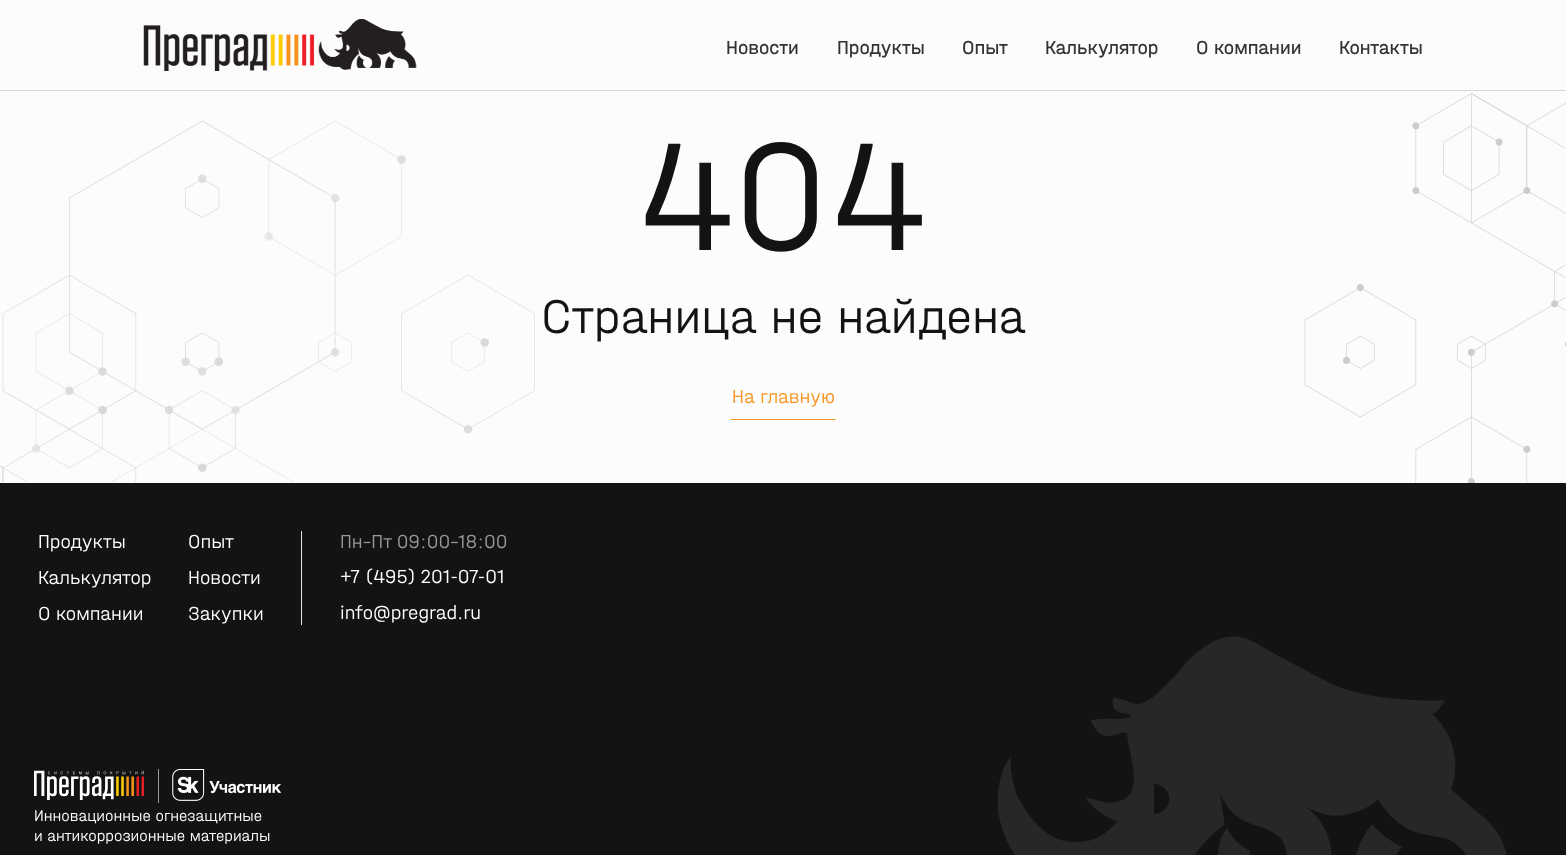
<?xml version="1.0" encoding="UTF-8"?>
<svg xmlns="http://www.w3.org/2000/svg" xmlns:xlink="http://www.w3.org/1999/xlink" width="1566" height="855">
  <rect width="100%" height="100%" fill="#fcfcfc" />
  <rect y="90" width="1566" height="1" fill="#d8d8d8" />
  <image x="143" y="19" width="274" height="52" xlink:href="image1.png" />
  <image x="0" y="120" width="535" height="362" xlink:href="image2.png" />
  <image x="1304" y="93" width="262" height="390" xlink:href="image3.png" />
  <path d="M 836 420 h -106 l 1 -1 h 104 z" fill="#f7941d" />
  <rect y="483" width="1566" height="372" fill="#131313" />
  <rect x="301" y="531" width="1" height="94" fill="#e6e6e6" />
  <rect x="158" y="769" width="1" height="34" fill="#999999" />
  <image x="34" y="770" width="111" height="30" xlink:href="image4.png" />
  <image x="172" y="769" width="109" height="32" xlink:href="image5.png" />
  <image x="998" y="636" width="509" height="219" xlink:href="image6.png" />
  <text x="726" y="54" style="font-family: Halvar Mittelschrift; font-size: 20px; fill: #333333">Новости</text>
  <text x="837" y="54" style="font-family: Halvar Mittelschrift; font-size: 20px; fill: #333333">Продукты</text>
  <text x="962" y="54" style="font-family: Halvar Mittelschrift; font-size: 20px; fill: #333333">Опыт</text>
  <text x="1045" y="54" style="font-family: Halvar Mittelschrift; font-size: 20px; fill: #333333">Калькулятор</text>
  <text x="1196" y="54" style="font-family: Halvar Mittelschrift; font-size: 20px; fill: #333333">О компании</text>
  <text x="1339" y="54" style="font-family: Halvar Mittelschrift; font-size: 20px; fill: #333333">Контакты</text>
  <text x="636" y="250" style="font-family: Halvar Mittelschrift; font-size: 162px; font-weight: 300; fill: #131313">404</text>
  <text x="541" y="333" style="font-family: Halvar Mittelschrift; font-size: 50px; font-weight: 300; fill: #131313">Страница не найдена</text>
  <text x="732" y="403" style="font-family: Halvar Mittelschrift; font-size: 20px; font-weight: 300; fill: #f7941d">На главную</text>
  <text x="38" y="548" style="font-family: Halvar Mittelschrift; font-size: 20px; font-weight: 300; fill: #ffffff">Продукты</text>
  <text x="38" y="584" style="font-family: Halvar Mittelschrift; font-size: 20px; font-weight: 300; fill: #ffffff">Калькулятор</text>
  <text x="38" y="620" style="font-family: Halvar Mittelschrift; font-size: 20px; font-weight: 300; fill: #ffffff">О компании</text>
  <text x="188" y="548" style="font-family: Halvar Mittelschrift; font-size: 20px; font-weight: 300; fill: #ffffff">Опыт</text>
  <text x="188" y="584" style="font-family: Halvar Mittelschrift; font-size: 20px; font-weight: 300; fill: #ffffff">Новости</text>
  <text x="188" y="620" style="font-family: Halvar Mittelschrift; font-size: 20px; font-weight: 300; fill: #ffffff">Закупки</text>
  <text x="340" y="548" style="font-family: Halvar Mittelschrift; font-size: 20px; font-weight: 300; fill: #999999">Пн–Пт 09:00–18:00</text>
  <text x="340" y="583" style="font-family: Halvar Mittelschrift; font-size: 20px; font-weight: 300; fill: #ffffff">+7 (495) 201-07-01</text>
  <text x="340" y="619" style="font-family: Halvar Mittelschrift; font-size: 20px; font-weight: 300; fill: #ffffff">info@pregrad.ru</text>
  <text x="34" y="821" style="font-family: Halvar Mittelschrift; font-size: 16.25px; font-weight: 300; fill: #ffffff">Инновационные огнезащитные</text>
  <text x="34" y="841" style="font-family: Halvar Mittelschrift; font-size: 16.25px; font-weight: 300; fill: #ffffff">и антикоррозионные материалы</text>
</svg>
